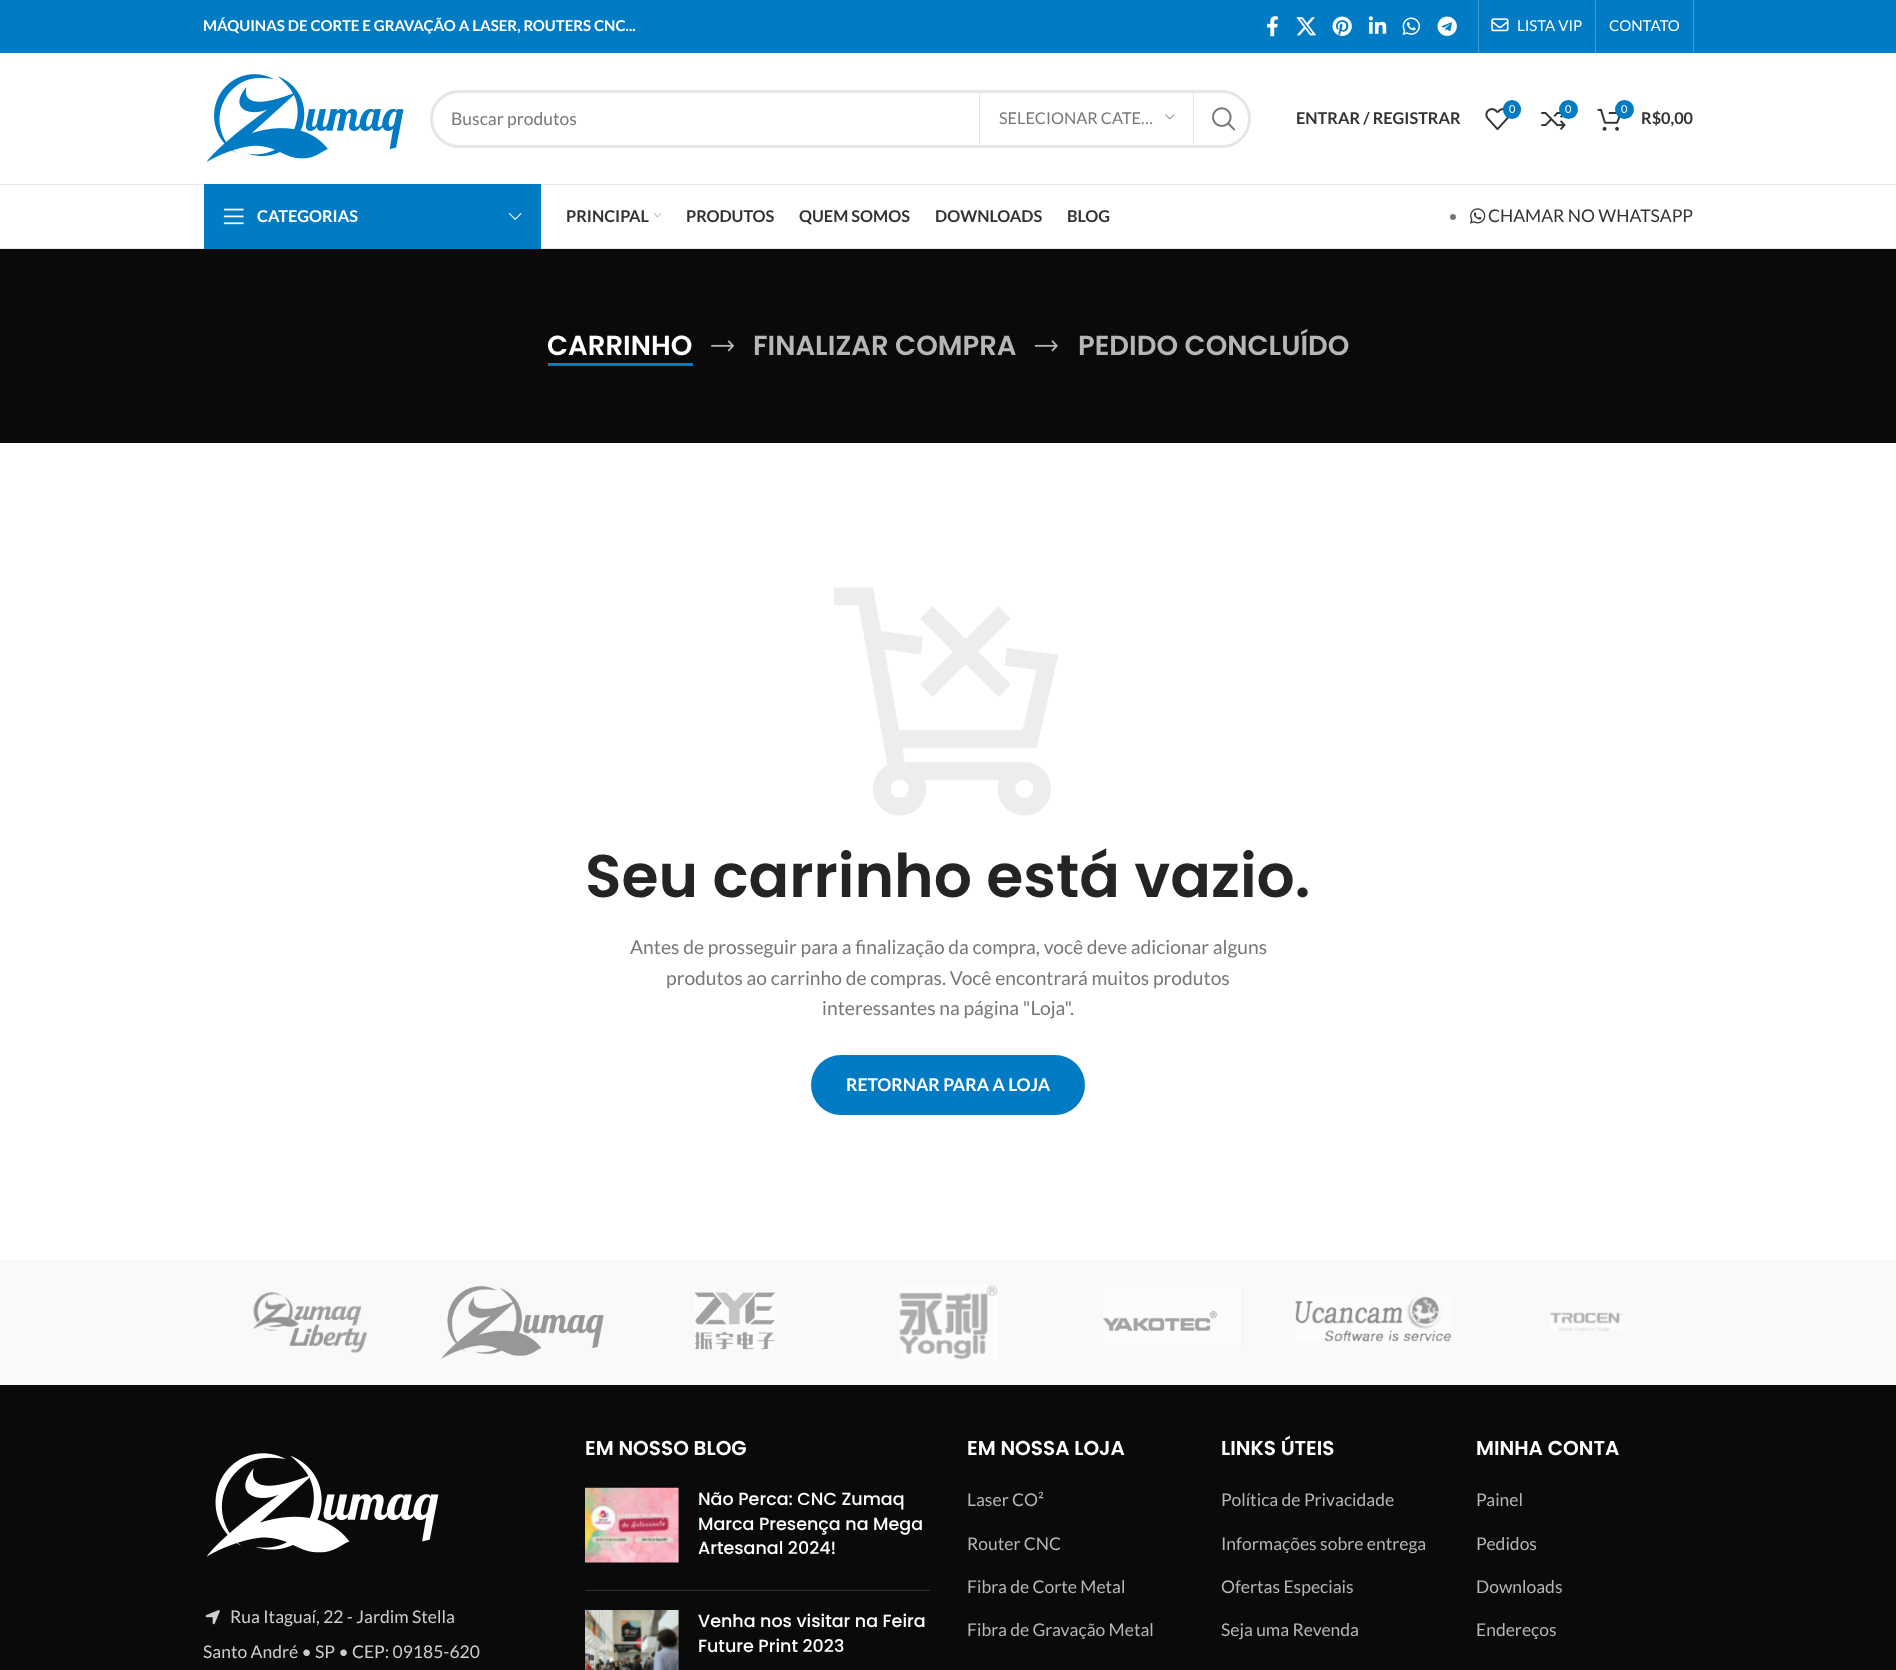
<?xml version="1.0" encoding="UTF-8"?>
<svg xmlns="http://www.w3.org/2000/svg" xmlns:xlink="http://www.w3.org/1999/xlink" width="1896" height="1670">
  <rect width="100%" height="100%" fill="#ffffff" />
  <rect width="1896" height="53" fill="#007bc4" />
  <image x="1267" y="16" width="11" height="21" xlink:href="image1.png" />
  <image x="1296" y="17" width="21" height="19" xlink:href="image2.png" />
  <image x="1332" y="16" width="20" height="20" xlink:href="image3.png" />
  <image x="1368" y="16" width="19" height="18" xlink:href="image4.png" />
  <image x="1402" y="17" width="18" height="18" xlink:href="image5.png" />
  <image x="1437" y="16" width="20" height="20" xlink:href="image6.png" />
  <rect x="1478" width="1" height="53" fill="#409cd3" />
  <image x="1491" y="18" width="18" height="14" xlink:href="image7.png" />
  <rect x="1595" width="1" height="53" fill="#409cd3" />
  <rect x="1693" width="1" height="53" fill="#409cd3" />
  <rect y="184" width="1896" height="1" fill="#e8e8e8" />
  <image x="206" y="74" width="198" height="88" xlink:href="image8.png" />
  <rect x="431.5" y="91.5" width="818" height="55" rx="27.5" fill="none" stroke="#e6e6e6" stroke-width="3" />
  <rect x="1193" y="93" width="1" height="52" fill="#e6e6e6" />
  <rect x="979" y="93" width="1" height="52" fill="#e6e6e6" />
  <image x="1165" y="114" width="10" height="6" xlink:href="image9.png" />
  <image x="1212" y="107" width="24" height="24" xlink:href="image10.png" />
  <image x="1485" y="108" width="24" height="22" xlink:href="image11.png" />
  <rect x="1503" y="100" width="18" height="19" rx="9" fill="#007bc4" />
  <image x="1541" y="109" width="25" height="21" xlink:href="image12.png" />
  <circle cx="1568.5" cy="109.5" r="9.5" fill="#007bc4" />
  <image x="1597" y="108" width="24" height="23" xlink:href="image13.png" />
  <circle cx="1624.5" cy="109.5" r="9.5" fill="#007bc4" />
  <rect y="248" width="1896" height="1" fill="#e8e8e8" />
  <rect x="204" y="184" width="337" height="65" fill="#007bc4" />
  <image x="223" y="208" width="21" height="17" xlink:href="image14.png" />
  <image x="508" y="213" width="14" height="7" xlink:href="image15.png" />
  <image x="653" y="213" width="9" height="5" xlink:href="image16.png" />
  <circle cx="1453" cy="217" r="3" fill="#777777" />
  <image x="1470" y="208" width="16" height="16" xlink:href="image17.png" />
  <rect y="249" width="1896" height="194" fill="#0a0a0a" />
  <rect x="548" y="363" width="145" height="3" fill="#007bc4" />
  <image x="711" y="340" width="24" height="12" xlink:href="image18.png" />
  <image x="1035" y="340" width="23" height="12" xlink:href="image19.png" />
  <image x="834" y="587" width="224" height="229" xlink:href="image20.png" />
  <rect x="811" y="1055" width="274" height="60" rx="30" fill="#007bc4" />
  <rect y="1260" width="1896" height="125" fill="#f9f9f9" />
  <image x="253" y="1292" width="115" height="62" xlink:href="image21.png" />
  <image x="441" y="1286" width="163" height="73" xlink:href="image22.png" />
  <image x="694" y="1292" width="81" height="58" xlink:href="image23.png" />
  <image x="899" y="1285" width="99" height="75" xlink:href="image24.png" />
  <image x="1103" y="1288" width="140" height="57" xlink:href="image25.png" />
  <image x="1295" y="1295" width="157" height="47" xlink:href="image26.png" />
  <image x="1550" y="1312" width="73" height="19" xlink:href="image27.png" />
  <rect y="1385" width="1896" height="285" fill="#0a0a0a" />
  <image x="206" y="1453" width="233" height="104" xlink:href="image28.png" />
  <image x="205" y="1610" width="15" height="15" xlink:href="image29.png" />
  <rect x="585" y="1590" width="345" height="1" fill="#2f2f2f" />
  <image x="585" y="1487" width="94" height="76" xlink:href="image30.png" />
  <image x="585" y="1610" width="94" height="60" xlink:href="image31.png" />
  <text x="203" y="31" style="font-family: Lato; font-size: 15px; font-weight: bold; fill: #ffffff">MÁQUINAS DE CORTE E GRAVAÇÃO A LASER, ROUTERS CNC...</text>
  <text x="1517" y="31" style="font-family: Lato; font-size: 15px; fill: #ffffff">LISTA VIP</text>
  <text x="1609" y="31" style="font-family: Lato; font-size: 15px; fill: #ffffff">CONTATO</text>
  <text x="451" y="125" style="font-family: Lato; font-size: 17.5px; fill: #777777">Buscar produtos</text>
  <text x="999" y="124" style="font-family: Lato; font-size: 16.25px; fill: #777777">SELECIONAR CATE…</text>
  <text x="1296" y="124" style="font-family: Lato; font-size: 16.25px; font-weight: bold; fill: #333333">ENTRAR / REGISTRAR</text>
  <text x="1509" y="113" style="font-family: Lato; font-size: 11px; fill: #ffffff">0</text>
  <text x="1565" y="113" style="font-family: Lato; font-size: 11px; fill: #ffffff">0</text>
  <text x="1621" y="113" style="font-family: Lato; font-size: 11px; fill: #ffffff">0</text>
  <text x="1641" y="124" style="font-family: Lato; font-size: 16.25px; font-weight: bold; fill: #333333">R$0,00</text>
  <text x="257" y="222" style="font-family: Lato; font-size: 16.25px; font-weight: bold; fill: #ffffff">CATEGORIAS</text>
  <text x="566" y="222" style="font-family: Lato; font-size: 16.25px; font-weight: bold; fill: #333333">PRINCIPAL</text>
  <text x="686" y="222" style="font-family: Lato; font-size: 16.25px; font-weight: bold; fill: #333333">PRODUTOS</text>
  <text x="799" y="222" style="font-family: Lato; font-size: 16.25px; font-weight: bold; fill: #333333">QUEM SOMOS</text>
  <text x="935" y="222" style="font-family: Lato; font-size: 16.25px; font-weight: bold; fill: #333333">DOWNLOADS</text>
  <text x="1067" y="222" style="font-family: Lato; font-size: 16.25px; font-weight: bold; fill: #333333">BLOG</text>
  <text x="1488" y="222" style="font-family: Lato; font-size: 17.5px; fill: #333333">CHAMAR NO WHATSAPP</text>
  <text x="547" y="355" style="font-family: Poppins; font-size: 27.5px; font-weight: 600; fill: #ffffff">CARRINHO</text>
  <text x="753" y="355" style="font-family: Poppins; font-size: 27.5px; font-weight: 600; fill: #b6b6b6">FINALIZAR COMPRA</text>
  <text x="1078" y="355" style="font-family: Poppins; font-size: 27.5px; font-weight: 600; fill: #b6b6b6">PEDIDO CONCLUÍDO</text>
  <text x="585" y="897" style="font-family: Poppins; font-size: 60px; font-weight: 600; fill: #242424">Seu carrinho está vazio.</text>
  <text x="630" y="954" style="font-family: Lato; font-size: 19.25px; fill: #777777">Antes de prosseguir para a finalização da compra, você deve adicionar alguns</text>
  <text x="666" y="985" style="font-family: Lato; font-size: 19.25px; fill: #777777">produtos ao carrinho de compras. Você encontrará muitos produtos</text>
  <text x="822" y="1015" style="font-family: Lato; font-size: 19.25px; fill: #777777">interessantes na página "Loja".</text>
  <text x="846" y="1091" style="font-family: Lato; font-size: 17.5px; font-weight: bold; fill: #ffffff">RETORNAR PARA A LOJA</text>
  <text x="230" y="1623" style="font-family: Lato; font-size: 17.5px; fill: #cecece">Rua Itaguaí, 22 - Jardim Stella</text>
  <text x="203" y="1658" style="font-family: Lato; font-size: 17.5px; fill: #cecece">Santo André • SP • CEP: 09185-620</text>
  <text x="585" y="1455" style="font-family: Poppins; font-size: 20px; font-weight: 600; fill: #ffffff">EM NOSSO BLOG</text>
  <text x="698" y="1505" style="font-family: Poppins; font-size: 17.5px; font-weight: 500; fill: #ffffff">Não Perca: CNC Zumaq</text>
  <text x="698" y="1530" style="font-family: Poppins; font-size: 17.5px; font-weight: 500; fill: #ffffff">Marca Presença na Mega</text>
  <text x="698" y="1554" style="font-family: Poppins; font-size: 17.5px; font-weight: 500; fill: #ffffff">Artesanal 2024!</text>
  <text x="698" y="1627" style="font-family: Poppins; font-size: 17.5px; font-weight: 500; fill: #ffffff">Venha nos visitar na Feira</text>
  <text x="698" y="1652" style="font-family: Poppins; font-size: 17.5px; font-weight: 500; fill: #ffffff">Future Print 2023</text>
  <text x="967" y="1455" style="font-family: Poppins; font-size: 20px; font-weight: 600; fill: #ffffff">EM NOSSA LOJA</text>
  <text x="967" y="1506" style="font-family: Lato; font-size: 17.5px; fill: #b6b6b6">Laser CO²</text>
  <text x="967" y="1550" style="font-family: Lato; font-size: 17.5px; fill: #b6b6b6">Router CNC</text>
  <text x="967" y="1593" style="font-family: Lato; font-size: 17.5px; fill: #b6b6b6">Fibra de Corte Metal</text>
  <text x="967" y="1636" style="font-family: Lato; font-size: 17.5px; fill: #b6b6b6">Fibra de Gravação Metal</text>
  <text x="1221" y="1455" style="font-family: Poppins; font-size: 20px; font-weight: 600; fill: #ffffff">LINKS ÚTEIS</text>
  <text x="1221" y="1506" style="font-family: Lato; font-size: 17.5px; fill: #b6b6b6">Política de Privacidade</text>
  <text x="1221" y="1550" style="font-family: Lato; font-size: 17.5px; fill: #b6b6b6">Informações sobre entrega</text>
  <text x="1221" y="1593" style="font-family: Lato; font-size: 17.5px; fill: #b6b6b6">Ofertas Especiais</text>
  <text x="1221" y="1636" style="font-family: Lato; font-size: 17.5px; fill: #b6b6b6">Seja uma Revenda</text>
  <text x="1476" y="1455" style="font-family: Poppins; font-size: 20px; font-weight: 600; fill: #ffffff">MINHA CONTA</text>
  <text x="1476" y="1506" style="font-family: Lato; font-size: 17.5px; fill: #b6b6b6">Painel</text>
  <text x="1476" y="1550" style="font-family: Lato; font-size: 17.5px; fill: #b6b6b6">Pedidos</text>
  <text x="1476" y="1593" style="font-family: Lato; font-size: 17.5px; fill: #b6b6b6">Downloads</text>
  <text x="1476" y="1636" style="font-family: Lato; font-size: 17.5px; fill: #b6b6b6">Endereços</text>
</svg>
